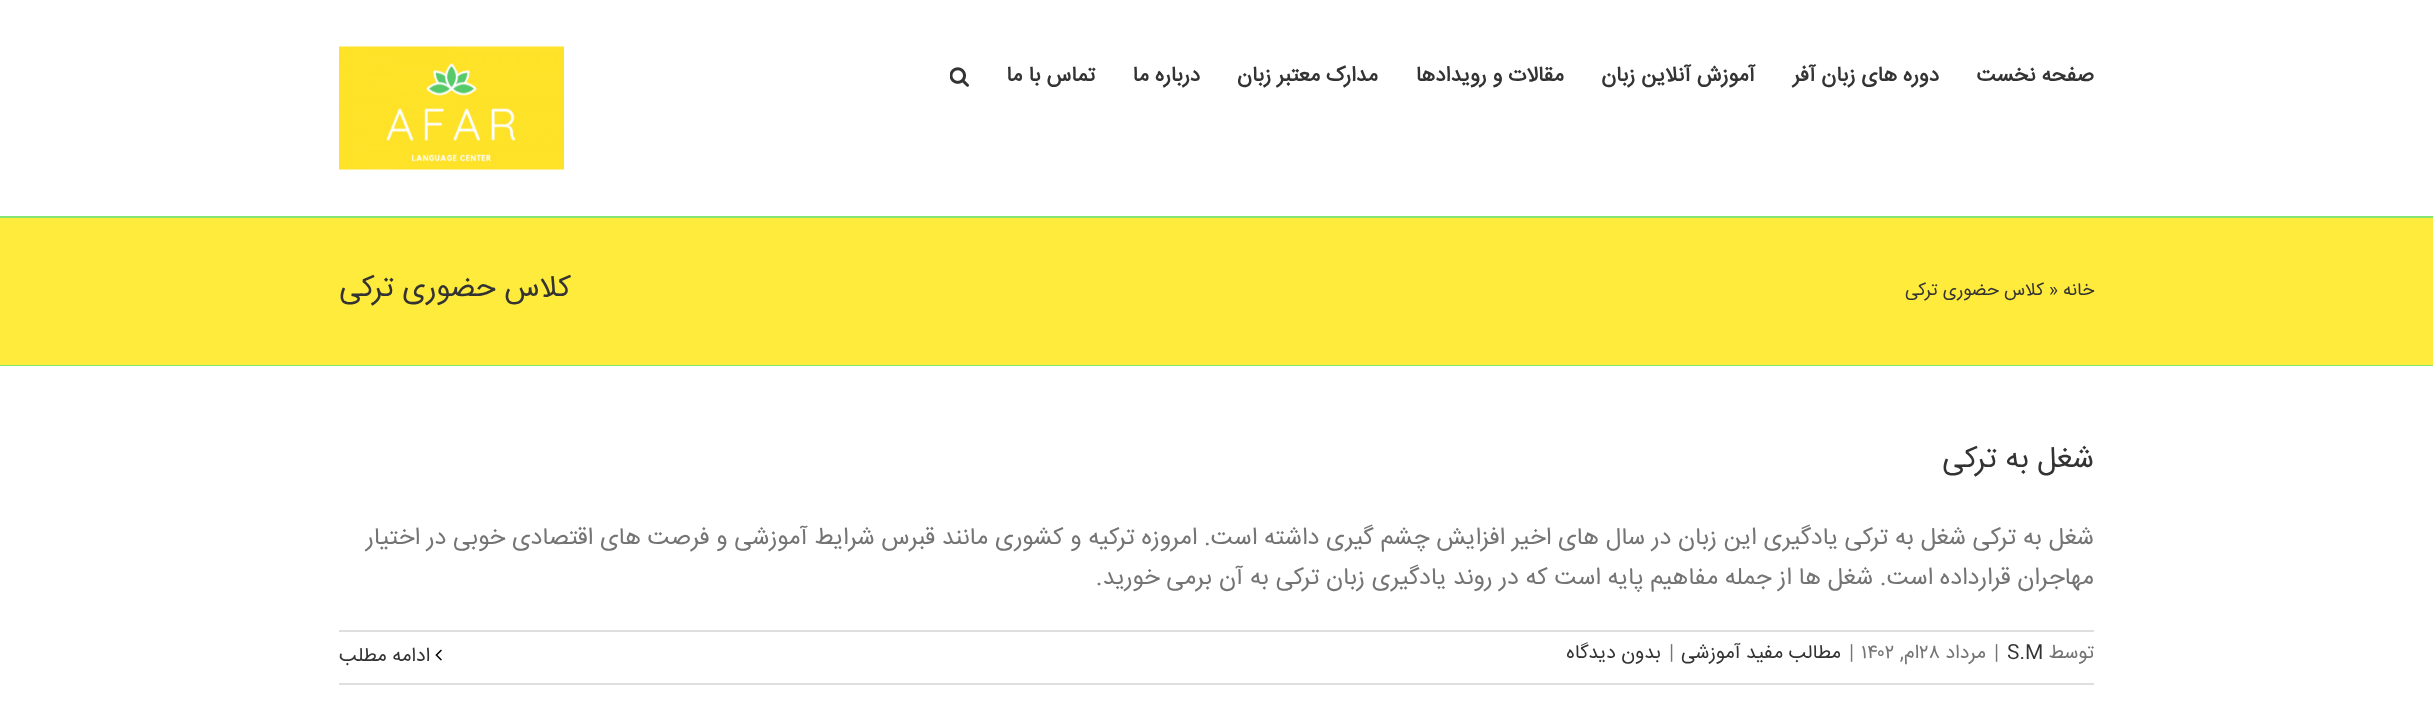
<?xml version="1.0" encoding="UTF-8"?>
<svg xmlns="http://www.w3.org/2000/svg" xmlns:xlink="http://www.w3.org/1999/xlink" width="2433" height="708">
  <rect width="100%" height="100%" fill="#ffffff" />
  <image x="950" y="67" width="19" height="20" xlink:href="image1.png" />
  <image x="339" y="46" width="225" height="124" xlink:href="image2.png" />
  <rect y="218" width="2433" height="147" fill="#ffeb3b" />
  <rect y="216" width="2433" height="2" fill="#85e572" />
  <rect y="365" width="2433" height="1" fill="#85e572" />
  <rect x="339" y="630" width="1755" height="2" fill="#e0dede" />
  <rect x="339" y="683" width="1755" height="2" fill="#e0dede" />
  <image x="435" y="649" width="7" height="12" xlink:href="image3.png" />
  <text x="2094" y="81" style="font-family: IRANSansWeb; font-size: 21px; font-weight: bold; direction: rtl; fill: #333333">صفحه نخست</text>
  <text x="1939" y="81" style="font-family: IRANSansWeb; font-size: 21px; font-weight: bold; direction: rtl; fill: #333333">دوره های زبان آفر</text>
  <text x="1755" y="81" style="font-family: IRANSansWeb; font-size: 21px; font-weight: bold; direction: rtl; fill: #333333">آموزش آنلاین زبان</text>
  <text x="1564" y="81" style="font-family: IRANSansWeb; font-size: 21px; font-weight: bold; direction: rtl; fill: #333333">مقالات و رویدادها</text>
  <text x="1378" y="81" style="font-family: IRANSansWeb; font-size: 21px; font-weight: bold; direction: rtl; fill: #333333">مدارک معتبر زبان</text>
  <text x="1200" y="81" style="font-family: IRANSansWeb; font-size: 21px; font-weight: bold; direction: rtl; fill: #333333">درباره ما</text>
  <text x="1095" y="81" style="font-family: IRANSansWeb; font-size: 21px; font-weight: bold; direction: rtl; fill: #333333">تماس با ما</text>
  <text x="2094" y="295" style="font-family: IRANSansWeb; font-size: 18px; direction: rtl; fill: #333333">خانه</text>
  <text x="2049" y="295" style="font-family: IRANSansWeb; font-size: 18px; fill: #333333">»</text>
  <text x="2044" y="295" style="font-family: IRANSansWeb; font-size: 18px; direction: rtl; fill: #333333">کلاس حضوری ترکی</text>
  <text x="571" y="296" style="font-family: IRANSansWeb; font-size: 30px; direction: rtl; fill: #333333">کلاس حضوری ترکی</text>
  <text x="2094" y="467" style="font-family: IRANSansWeb; font-size: 30px; direction: rtl; fill: #333333">شغل به ترکی</text>
  <text x="2094" y="544" style="font-family: IRANSansWeb; font-size: 24px; direction: rtl; fill: #747474">شغل به ترکی</text>
  <text x="1966" y="544" style="font-family: IRANSansWeb; font-size: 24px; direction: rtl; fill: #747474">شغل به ترکی</text>
  <text x="1838" y="544" style="font-family: IRANSansWeb; font-size: 24px; direction: rtl; fill: #747474">یادگیری این زبان در سال های اخیر افزایش چشم گیری داشته است. امروزه ترکیه و کشوری مانند قبرس شرایط آموزشی و فرصت های اقتصادی خوبی در اختیار</text>
  <text x="2094" y="584" style="font-family: IRANSansWeb; font-size: 24px; direction: rtl; fill: #747474">مهاجران قرارداده است. شغل ها از جمله مفاهیم پایه است که در روند یادگیری زبان ترکی به آن برمی خورید.</text>
  <text x="2094" y="658" style="font-family: IRANSansWeb; font-size: 19.5px; direction: rtl; fill: #747474">توسط</text>
  <text x="2007" y="658" style="font-family: IRANSansWeb; font-size: 19.5px; fill: #333333">S.M</text>
  <text x="1994" y="658" style="font-family: IRANSansWeb; font-size: 19.5px; fill: #747474">|</text>
  <text x="1986" y="658" style="font-family: IRANSansWeb; font-size: 19.5px; direction: rtl; fill: #747474">مرداد</text>
  <text x="1919" y="658" style="font-family: IRANSansWeb; font-size: 19.5px; fill: #747474">۲۸</text>
  <text x="1919" y="658" style="font-family: IRANSansWeb; font-size: 19.5px; direction: rtl; fill: #747474">ام,</text>
  <text x="1861" y="658" style="font-family: IRANSansWeb; font-size: 19.5px; fill: #747474">۱۴۰۲</text>
  <text x="1849" y="658" style="font-family: IRANSansWeb; font-size: 19.5px; fill: #747474">|</text>
  <text x="1841" y="658" style="font-family: IRANSansWeb; font-size: 19.5px; direction: rtl; fill: #333333">مطالب مفید آموزشی</text>
  <text x="1669" y="658" style="font-family: IRANSansWeb; font-size: 19.5px; fill: #747474">|</text>
  <text x="1661" y="658" style="font-family: IRANSansWeb; font-size: 19.5px; direction: rtl; fill: #333333">بدون دیدگاه</text>
  <text x="430" y="661" style="font-family: IRANSansWeb; font-size: 19.5px; direction: rtl; fill: #333333">ادامه مطلب</text>
</svg>
